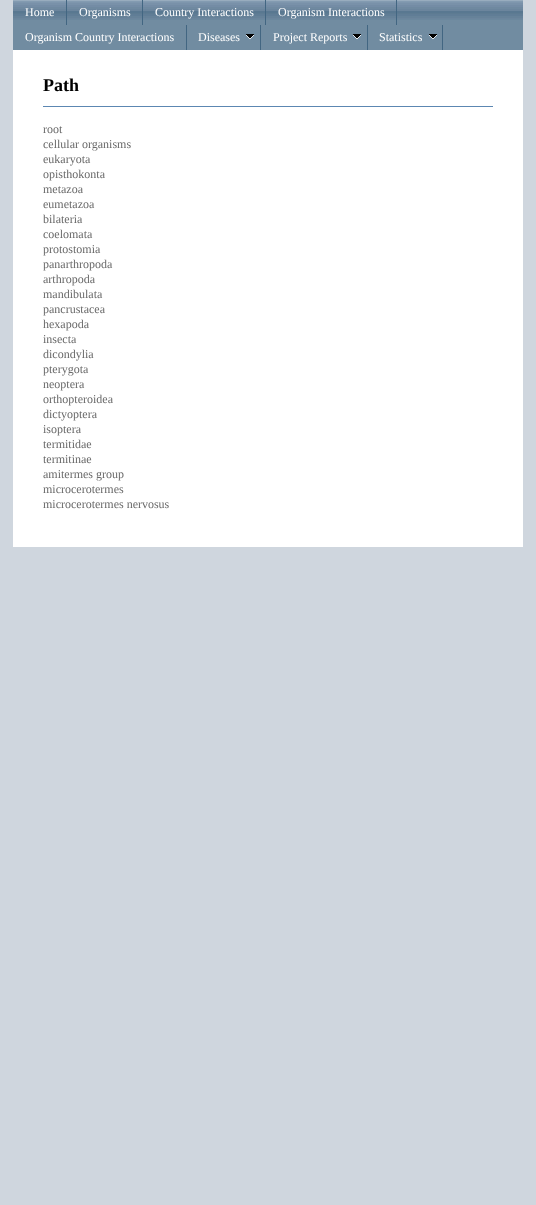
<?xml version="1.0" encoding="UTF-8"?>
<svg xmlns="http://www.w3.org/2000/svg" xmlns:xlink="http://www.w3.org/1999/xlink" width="536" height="1205">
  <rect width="100%" height="100%" fill="#cfd6de" />
  <rect x="13" y="20" width="510" height="30" fill="#718ca1" />
  <image x="13" y="0" width="510" height="20" xlink:href="image1.png" />
  <rect x="66" width="1" height="25" fill="#426682" />
  <rect x="142" width="1" height="25" fill="#426682" />
  <rect x="265" width="1" height="25" fill="#426682" />
  <rect x="396" width="1" height="25" fill="#426682" />
  <rect x="186" y="25" width="1" height="25" fill="#426682" />
  <rect x="260" y="25" width="1" height="25" fill="#426682" />
  <image x="246" y="34" width="8" height="5" xlink:href="image2.png" />
  <rect x="367" y="25" width="1" height="25" fill="#426682" />
  <image x="353" y="34" width="8" height="5" xlink:href="image2.png" />
  <rect x="442" y="25" width="1" height="25" fill="#426682" />
  <image x="429" y="34" width="8" height="5" xlink:href="image2.png" />
  <rect x="13" y="50" width="510" height="497" fill="#ffffff" />
  <rect x="43" y="106" width="450" height="1" fill="#5c87b2" />
  <text x="25" y="16" style="font-family: Liberation Serif; font-size: 12px; fill: #ffffff">Home</text>
  <text x="79" y="16" style="font-family: Liberation Serif; font-size: 12px; fill: #ffffff">Organisms</text>
  <text x="155" y="16" style="font-family: Liberation Serif; font-size: 12px; fill: #ffffff">Country Interactions</text>
  <text x="278" y="16" style="font-family: Liberation Serif; font-size: 12px; fill: #ffffff">Organism Interactions</text>
  <text x="25" y="41" style="font-family: Liberation Serif; font-size: 12px; fill: #ffffff">Organism Country Interactions</text>
  <text x="198" y="41" style="font-family: Liberation Serif; font-size: 12px; fill: #ffffff">Diseases</text>
  <text x="273" y="41" style="font-family: Liberation Serif; font-size: 12px; fill: #ffffff">Project Reports</text>
  <text x="379" y="41" style="font-family: Liberation Serif; font-size: 12px; fill: #ffffff">Statistics</text>
  <text x="43" y="91" style="font-family: Liberation Serif; font-size: 18px; font-weight: bold; fill: #000000">Path</text>
  <text x="43" y="133" style="font-family: Liberation Serif; font-size: 12px; fill: #696969">root</text>
  <text x="43" y="148" style="font-family: Liberation Serif; font-size: 12px; fill: #696969">cellular organisms</text>
  <text x="43" y="163" style="font-family: Liberation Serif; font-size: 12px; fill: #696969">eukaryota</text>
  <text x="43" y="178" style="font-family: Liberation Serif; font-size: 12px; fill: #696969">opisthokonta</text>
  <text x="43" y="193" style="font-family: Liberation Serif; font-size: 12px; fill: #696969">metazoa</text>
  <text x="43" y="208" style="font-family: Liberation Serif; font-size: 12px; fill: #696969">eumetazoa</text>
  <text x="43" y="223" style="font-family: Liberation Serif; font-size: 12px; fill: #696969">bilateria</text>
  <text x="43" y="238" style="font-family: Liberation Serif; font-size: 12px; fill: #696969">coelomata</text>
  <text x="43" y="253" style="font-family: Liberation Serif; font-size: 12px; fill: #696969">protostomia</text>
  <text x="43" y="268" style="font-family: Liberation Serif; font-size: 12px; fill: #696969">panarthropoda</text>
  <text x="43" y="283" style="font-family: Liberation Serif; font-size: 12px; fill: #696969">arthropoda</text>
  <text x="43" y="298" style="font-family: Liberation Serif; font-size: 12px; fill: #696969">mandibulata</text>
  <text x="43" y="313" style="font-family: Liberation Serif; font-size: 12px; fill: #696969">pancrustacea</text>
  <text x="43" y="328" style="font-family: Liberation Serif; font-size: 12px; fill: #696969">hexapoda</text>
  <text x="43" y="343" style="font-family: Liberation Serif; font-size: 12px; fill: #696969">insecta</text>
  <text x="43" y="358" style="font-family: Liberation Serif; font-size: 12px; fill: #696969">dicondylia</text>
  <text x="43" y="373" style="font-family: Liberation Serif; font-size: 12px; fill: #696969">pterygota</text>
  <text x="43" y="388" style="font-family: Liberation Serif; font-size: 12px; fill: #696969">neoptera</text>
  <text x="43" y="403" style="font-family: Liberation Serif; font-size: 12px; fill: #696969">orthopteroidea</text>
  <text x="43" y="418" style="font-family: Liberation Serif; font-size: 12px; fill: #696969">dictyoptera</text>
  <text x="43" y="433" style="font-family: Liberation Serif; font-size: 12px; fill: #696969">isoptera</text>
  <text x="43" y="448" style="font-family: Liberation Serif; font-size: 12px; fill: #696969">termitidae</text>
  <text x="43" y="463" style="font-family: Liberation Serif; font-size: 12px; fill: #696969">termitinae</text>
  <text x="43" y="478" style="font-family: Liberation Serif; font-size: 12px; fill: #696969">amitermes group</text>
  <text x="43" y="493" style="font-family: Liberation Serif; font-size: 12px; fill: #696969">microcerotermes</text>
  <text x="43" y="508" style="font-family: Liberation Serif; font-size: 12px; fill: #696969">microcerotermes nervosus</text>
</svg>
